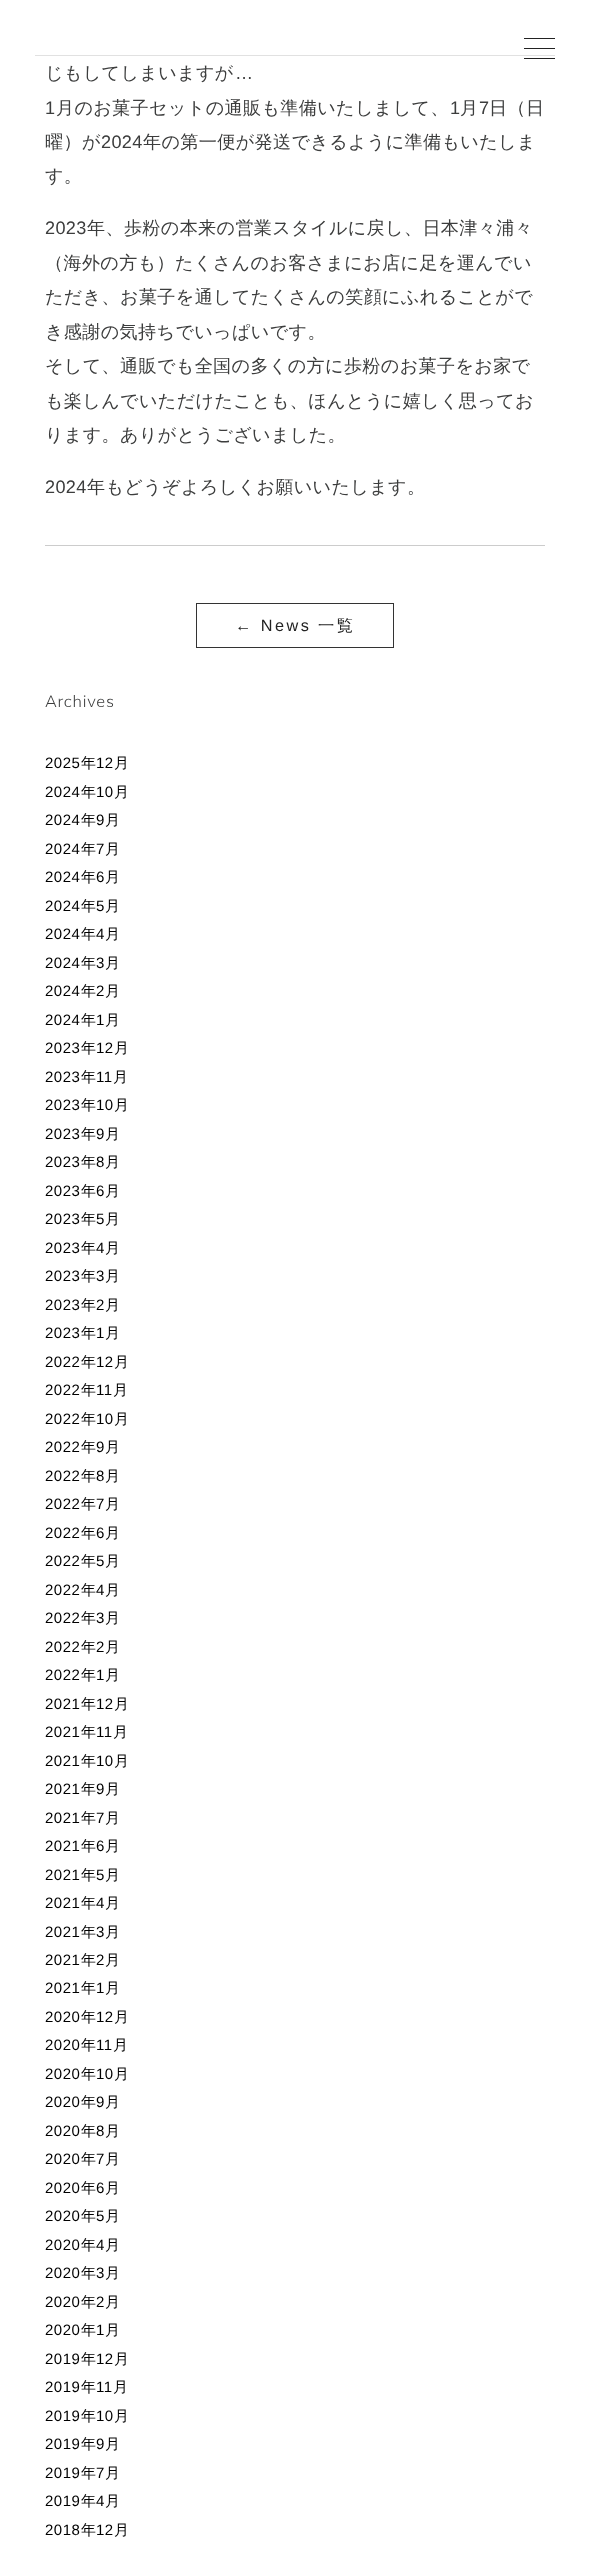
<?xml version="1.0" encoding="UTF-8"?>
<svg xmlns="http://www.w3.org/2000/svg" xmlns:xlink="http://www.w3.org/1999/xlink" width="589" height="2552">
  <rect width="100%" height="100%" fill="#ffffff" />
  <rect x="524" y="38" width="31" height="1" fill="#222222" />
  <rect x="524" y="48" width="31" height="1" fill="#222222" />
  <rect x="524" y="58" width="31" height="1" fill="#222222" />
  <rect x="35" y="55" width="520" height="1" fill="#e1e1e1" />
  <rect x="45" y="545" width="500" height="1" fill="#cccccc" />
  <rect x="196.5" y="603.5" width="197" height="44" fill="none" stroke="#333333" />
  <text x="45" y="79" style="font-family: WenQuanYi Zen Hei; font-size: 18.1px; font-weight: 500; letter-spacing: 0.35px; fill: #3c3d3d">じもしてしまいますが</text>
  <text x="235" y="79" style="font-family: Liberation Sans; font-size: 18.1px; letter-spacing: 0.35px; fill: #3c3d3d">…</text>
  <text x="45" y="114" style="font-family: Liberation Sans; font-size: 18.1px; letter-spacing: 0.35px; fill: #3c3d3d">1</text>
  <text x="56" y="114" style="font-family: WenQuanYi Zen Hei; font-size: 18.1px; font-weight: 500; letter-spacing: 0.35px; fill: #3c3d3d">月のお菓子セットの通販も準備いたしまして、</text>
  <text x="450" y="114" style="font-family: Liberation Sans; font-size: 18.1px; letter-spacing: 0.35px; fill: #3c3d3d">1</text>
  <text x="460" y="114" style="font-family: WenQuanYi Zen Hei; font-size: 18.1px; font-weight: 500; letter-spacing: 0.35px; fill: #3c3d3d">月</text>
  <text x="479" y="114" style="font-family: Liberation Sans; font-size: 18.1px; letter-spacing: 0.35px; fill: #3c3d3d">7</text>
  <text x="489" y="114" style="font-family: WenQuanYi Zen Hei; font-size: 18.1px; font-weight: 500; letter-spacing: 0.35px; fill: #3c3d3d">日（日</text>
  <text x="45" y="148" style="font-family: WenQuanYi Zen Hei; font-size: 18.1px; font-weight: 500; letter-spacing: 0.35px; fill: #3c3d3d">曜）が</text>
  <text x="101" y="148" style="font-family: Liberation Sans; font-size: 18.1px; letter-spacing: 0.35px; fill: #3c3d3d">2024</text>
  <text x="143" y="148" style="font-family: WenQuanYi Zen Hei; font-size: 18.1px; font-weight: 500; letter-spacing: 0.35px; fill: #3c3d3d">年の第一便が発送できるように準備もいたしま</text>
  <text x="45" y="182" style="font-family: WenQuanYi Zen Hei; font-size: 18.1px; font-weight: 500; letter-spacing: 0.35px; fill: #3c3d3d">す。</text>
  <text x="45" y="234" style="font-family: Liberation Sans; font-size: 18.1px; letter-spacing: 0.35px; fill: #3c3d3d">2023</text>
  <text x="87" y="234" style="font-family: WenQuanYi Zen Hei; font-size: 18.1px; font-weight: 500; letter-spacing: 0.35px; fill: #3c3d3d">年、歩粉の本来の営業スタイルに戻し、日本津々浦々</text>
  <text x="45" y="269" style="font-family: WenQuanYi Zen Hei; font-size: 18.1px; font-weight: 500; letter-spacing: 0.35px; fill: #3c3d3d">（海外の方も）たくさんのお客さまにお店に足を運んでい</text>
  <text x="45" y="303" style="font-family: WenQuanYi Zen Hei; font-size: 18.1px; font-weight: 500; letter-spacing: 0.35px; fill: #3c3d3d">ただき、お菓子を通してたくさんの笑顔にふれることがで</text>
  <text x="45" y="338" style="font-family: WenQuanYi Zen Hei; font-size: 18.1px; font-weight: 500; letter-spacing: 0.35px; fill: #3c3d3d">き感謝の気持ちでいっぱいです。</text>
  <text x="45" y="372" style="font-family: WenQuanYi Zen Hei; font-size: 18.1px; font-weight: 500; letter-spacing: 0.35px; fill: #3c3d3d">そして、通販でも全国の多くの方に歩粉のお菓子をお家で</text>
  <text x="45" y="407" style="font-family: WenQuanYi Zen Hei; font-size: 18.1px; font-weight: 500; letter-spacing: 0.35px; fill: #3c3d3d">も楽しんでいただけたことも、ほんとうに嬉しく思ってお</text>
  <text x="45" y="441" style="font-family: WenQuanYi Zen Hei; font-size: 18.1px; font-weight: 500; letter-spacing: 0.35px; fill: #3c3d3d">ります。ありがとうございました。</text>
  <text x="45" y="493" style="font-family: Liberation Sans; font-size: 18.1px; letter-spacing: 0.35px; fill: #3c3d3d">2024</text>
  <text x="87" y="493" style="font-family: WenQuanYi Zen Hei; font-size: 18.1px; font-weight: 500; letter-spacing: 0.35px; fill: #3c3d3d">年もどうぞよろしくお願いいたします。</text>
  <text x="235" y="631" style="font-family: Liberation Sans; font-size: 16.25px; letter-spacing: 2.5px; fill: #222222">← News</text>
  <text x="318" y="631" style="font-family: WenQuanYi Zen Hei; font-size: 16.25px; font-weight: 500; letter-spacing: 2.5px; fill: #222222">一覧</text>
  <text x="45" y="707" style="font-family: Muli; font-size: 16.25px; font-weight: 300; letter-spacing: 0.75px; fill: #3c3d3d">Archives</text>
  <text x="45" y="768" style="font-family: Liberation Sans; font-size: 15px; letter-spacing: 0.5px; fill: #000000">2025</text>
  <text x="81" y="768" style="font-family: WenQuanYi Zen Hei; font-size: 15px; font-weight: 500; letter-spacing: 0.5px; fill: #000000">年</text>
  <text x="96" y="768" style="font-family: Liberation Sans; font-size: 15px; letter-spacing: 0.5px; fill: #000000">12</text>
  <text x="114" y="768" style="font-family: WenQuanYi Zen Hei; font-size: 15px; font-weight: 500; letter-spacing: 0.5px; fill: #000000">月</text>
  <text x="45" y="797" style="font-family: Liberation Sans; font-size: 15px; letter-spacing: 0.5px; fill: #000000">2024</text>
  <text x="81" y="797" style="font-family: WenQuanYi Zen Hei; font-size: 15px; font-weight: 500; letter-spacing: 0.5px; fill: #000000">年</text>
  <text x="96" y="797" style="font-family: Liberation Sans; font-size: 15px; letter-spacing: 0.5px; fill: #000000">10</text>
  <text x="114" y="797" style="font-family: WenQuanYi Zen Hei; font-size: 15px; font-weight: 500; letter-spacing: 0.5px; fill: #000000">月</text>
  <text x="45" y="825" style="font-family: Liberation Sans; font-size: 15px; letter-spacing: 0.5px; fill: #000000">2024</text>
  <text x="81" y="825" style="font-family: WenQuanYi Zen Hei; font-size: 15px; font-weight: 500; letter-spacing: 0.5px; fill: #000000">年</text>
  <text x="96" y="825" style="font-family: Liberation Sans; font-size: 15px; letter-spacing: 0.5px; fill: #000000">9</text>
  <text x="105" y="825" style="font-family: WenQuanYi Zen Hei; font-size: 15px; font-weight: 500; letter-spacing: 0.5px; fill: #000000">月</text>
  <text x="45" y="854" style="font-family: Liberation Sans; font-size: 15px; letter-spacing: 0.5px; fill: #000000">2024</text>
  <text x="81" y="854" style="font-family: WenQuanYi Zen Hei; font-size: 15px; font-weight: 500; letter-spacing: 0.5px; fill: #000000">年</text>
  <text x="96" y="854" style="font-family: Liberation Sans; font-size: 15px; letter-spacing: 0.5px; fill: #000000">7</text>
  <text x="105" y="854" style="font-family: WenQuanYi Zen Hei; font-size: 15px; font-weight: 500; letter-spacing: 0.5px; fill: #000000">月</text>
  <text x="45" y="882" style="font-family: Liberation Sans; font-size: 15px; letter-spacing: 0.5px; fill: #000000">2024</text>
  <text x="81" y="882" style="font-family: WenQuanYi Zen Hei; font-size: 15px; font-weight: 500; letter-spacing: 0.5px; fill: #000000">年</text>
  <text x="96" y="882" style="font-family: Liberation Sans; font-size: 15px; letter-spacing: 0.5px; fill: #000000">6</text>
  <text x="105" y="882" style="font-family: WenQuanYi Zen Hei; font-size: 15px; font-weight: 500; letter-spacing: 0.5px; fill: #000000">月</text>
  <text x="45" y="911" style="font-family: Liberation Sans; font-size: 15px; letter-spacing: 0.5px; fill: #000000">2024</text>
  <text x="81" y="911" style="font-family: WenQuanYi Zen Hei; font-size: 15px; font-weight: 500; letter-spacing: 0.5px; fill: #000000">年</text>
  <text x="96" y="911" style="font-family: Liberation Sans; font-size: 15px; letter-spacing: 0.5px; fill: #000000">5</text>
  <text x="105" y="911" style="font-family: WenQuanYi Zen Hei; font-size: 15px; font-weight: 500; letter-spacing: 0.5px; fill: #000000">月</text>
  <text x="45" y="939" style="font-family: Liberation Sans; font-size: 15px; letter-spacing: 0.5px; fill: #000000">2024</text>
  <text x="81" y="939" style="font-family: WenQuanYi Zen Hei; font-size: 15px; font-weight: 500; letter-spacing: 0.5px; fill: #000000">年</text>
  <text x="96" y="939" style="font-family: Liberation Sans; font-size: 15px; letter-spacing: 0.5px; fill: #000000">4</text>
  <text x="105" y="939" style="font-family: WenQuanYi Zen Hei; font-size: 15px; font-weight: 500; letter-spacing: 0.5px; fill: #000000">月</text>
  <text x="45" y="968" style="font-family: Liberation Sans; font-size: 15px; letter-spacing: 0.5px; fill: #000000">2024</text>
  <text x="81" y="968" style="font-family: WenQuanYi Zen Hei; font-size: 15px; font-weight: 500; letter-spacing: 0.5px; fill: #000000">年</text>
  <text x="96" y="968" style="font-family: Liberation Sans; font-size: 15px; letter-spacing: 0.5px; fill: #000000">3</text>
  <text x="105" y="968" style="font-family: WenQuanYi Zen Hei; font-size: 15px; font-weight: 500; letter-spacing: 0.5px; fill: #000000">月</text>
  <text x="45" y="996" style="font-family: Liberation Sans; font-size: 15px; letter-spacing: 0.5px; fill: #000000">2024</text>
  <text x="81" y="996" style="font-family: WenQuanYi Zen Hei; font-size: 15px; font-weight: 500; letter-spacing: 0.5px; fill: #000000">年</text>
  <text x="96" y="996" style="font-family: Liberation Sans; font-size: 15px; letter-spacing: 0.5px; fill: #000000">2</text>
  <text x="105" y="996" style="font-family: WenQuanYi Zen Hei; font-size: 15px; font-weight: 500; letter-spacing: 0.5px; fill: #000000">月</text>
  <text x="45" y="1025" style="font-family: Liberation Sans; font-size: 15px; letter-spacing: 0.5px; fill: #000000">2024</text>
  <text x="81" y="1025" style="font-family: WenQuanYi Zen Hei; font-size: 15px; font-weight: 500; letter-spacing: 0.5px; fill: #000000">年</text>
  <text x="96" y="1025" style="font-family: Liberation Sans; font-size: 15px; letter-spacing: 0.5px; fill: #000000">1</text>
  <text x="105" y="1025" style="font-family: WenQuanYi Zen Hei; font-size: 15px; font-weight: 500; letter-spacing: 0.5px; fill: #000000">月</text>
  <text x="45" y="1053" style="font-family: Liberation Sans; font-size: 15px; letter-spacing: 0.5px; fill: #000000">2023</text>
  <text x="81" y="1053" style="font-family: WenQuanYi Zen Hei; font-size: 15px; font-weight: 500; letter-spacing: 0.5px; fill: #000000">年</text>
  <text x="96" y="1053" style="font-family: Liberation Sans; font-size: 15px; letter-spacing: 0.5px; fill: #000000">12</text>
  <text x="114" y="1053" style="font-family: WenQuanYi Zen Hei; font-size: 15px; font-weight: 500; letter-spacing: 0.5px; fill: #000000">月</text>
  <text x="45" y="1082" style="font-family: Liberation Sans; font-size: 15px; letter-spacing: 0.5px; fill: #000000">2023</text>
  <text x="81" y="1082" style="font-family: WenQuanYi Zen Hei; font-size: 15px; font-weight: 500; letter-spacing: 0.5px; fill: #000000">年</text>
  <text x="96" y="1082" style="font-family: Liberation Sans; font-size: 15px; letter-spacing: 0.5px; fill: #000000">11</text>
  <text x="113" y="1082" style="font-family: WenQuanYi Zen Hei; font-size: 15px; font-weight: 500; letter-spacing: 0.5px; fill: #000000">月</text>
  <text x="45" y="1110" style="font-family: Liberation Sans; font-size: 15px; letter-spacing: 0.5px; fill: #000000">2023</text>
  <text x="81" y="1110" style="font-family: WenQuanYi Zen Hei; font-size: 15px; font-weight: 500; letter-spacing: 0.5px; fill: #000000">年</text>
  <text x="96" y="1110" style="font-family: Liberation Sans; font-size: 15px; letter-spacing: 0.5px; fill: #000000">10</text>
  <text x="114" y="1110" style="font-family: WenQuanYi Zen Hei; font-size: 15px; font-weight: 500; letter-spacing: 0.5px; fill: #000000">月</text>
  <text x="45" y="1139" style="font-family: Liberation Sans; font-size: 15px; letter-spacing: 0.5px; fill: #000000">2023</text>
  <text x="81" y="1139" style="font-family: WenQuanYi Zen Hei; font-size: 15px; font-weight: 500; letter-spacing: 0.5px; fill: #000000">年</text>
  <text x="96" y="1139" style="font-family: Liberation Sans; font-size: 15px; letter-spacing: 0.5px; fill: #000000">9</text>
  <text x="105" y="1139" style="font-family: WenQuanYi Zen Hei; font-size: 15px; font-weight: 500; letter-spacing: 0.5px; fill: #000000">月</text>
  <text x="45" y="1167" style="font-family: Liberation Sans; font-size: 15px; letter-spacing: 0.5px; fill: #000000">2023</text>
  <text x="81" y="1167" style="font-family: WenQuanYi Zen Hei; font-size: 15px; font-weight: 500; letter-spacing: 0.5px; fill: #000000">年</text>
  <text x="96" y="1167" style="font-family: Liberation Sans; font-size: 15px; letter-spacing: 0.5px; fill: #000000">8</text>
  <text x="105" y="1167" style="font-family: WenQuanYi Zen Hei; font-size: 15px; font-weight: 500; letter-spacing: 0.5px; fill: #000000">月</text>
  <text x="45" y="1196" style="font-family: Liberation Sans; font-size: 15px; letter-spacing: 0.5px; fill: #000000">2023</text>
  <text x="81" y="1196" style="font-family: WenQuanYi Zen Hei; font-size: 15px; font-weight: 500; letter-spacing: 0.5px; fill: #000000">年</text>
  <text x="96" y="1196" style="font-family: Liberation Sans; font-size: 15px; letter-spacing: 0.5px; fill: #000000">6</text>
  <text x="105" y="1196" style="font-family: WenQuanYi Zen Hei; font-size: 15px; font-weight: 500; letter-spacing: 0.5px; fill: #000000">月</text>
  <text x="45" y="1224" style="font-family: Liberation Sans; font-size: 15px; letter-spacing: 0.5px; fill: #000000">2023</text>
  <text x="81" y="1224" style="font-family: WenQuanYi Zen Hei; font-size: 15px; font-weight: 500; letter-spacing: 0.5px; fill: #000000">年</text>
  <text x="96" y="1224" style="font-family: Liberation Sans; font-size: 15px; letter-spacing: 0.5px; fill: #000000">5</text>
  <text x="105" y="1224" style="font-family: WenQuanYi Zen Hei; font-size: 15px; font-weight: 500; letter-spacing: 0.5px; fill: #000000">月</text>
  <text x="45" y="1253" style="font-family: Liberation Sans; font-size: 15px; letter-spacing: 0.5px; fill: #000000">2023</text>
  <text x="81" y="1253" style="font-family: WenQuanYi Zen Hei; font-size: 15px; font-weight: 500; letter-spacing: 0.5px; fill: #000000">年</text>
  <text x="96" y="1253" style="font-family: Liberation Sans; font-size: 15px; letter-spacing: 0.5px; fill: #000000">4</text>
  <text x="105" y="1253" style="font-family: WenQuanYi Zen Hei; font-size: 15px; font-weight: 500; letter-spacing: 0.5px; fill: #000000">月</text>
  <text x="45" y="1281" style="font-family: Liberation Sans; font-size: 15px; letter-spacing: 0.5px; fill: #000000">2023</text>
  <text x="81" y="1281" style="font-family: WenQuanYi Zen Hei; font-size: 15px; font-weight: 500; letter-spacing: 0.5px; fill: #000000">年</text>
  <text x="96" y="1281" style="font-family: Liberation Sans; font-size: 15px; letter-spacing: 0.5px; fill: #000000">3</text>
  <text x="105" y="1281" style="font-family: WenQuanYi Zen Hei; font-size: 15px; font-weight: 500; letter-spacing: 0.5px; fill: #000000">月</text>
  <text x="45" y="1310" style="font-family: Liberation Sans; font-size: 15px; letter-spacing: 0.5px; fill: #000000">2023</text>
  <text x="81" y="1310" style="font-family: WenQuanYi Zen Hei; font-size: 15px; font-weight: 500; letter-spacing: 0.5px; fill: #000000">年</text>
  <text x="96" y="1310" style="font-family: Liberation Sans; font-size: 15px; letter-spacing: 0.5px; fill: #000000">2</text>
  <text x="105" y="1310" style="font-family: WenQuanYi Zen Hei; font-size: 15px; font-weight: 500; letter-spacing: 0.5px; fill: #000000">月</text>
  <text x="45" y="1338" style="font-family: Liberation Sans; font-size: 15px; letter-spacing: 0.5px; fill: #000000">2023</text>
  <text x="81" y="1338" style="font-family: WenQuanYi Zen Hei; font-size: 15px; font-weight: 500; letter-spacing: 0.5px; fill: #000000">年</text>
  <text x="96" y="1338" style="font-family: Liberation Sans; font-size: 15px; letter-spacing: 0.5px; fill: #000000">1</text>
  <text x="105" y="1338" style="font-family: WenQuanYi Zen Hei; font-size: 15px; font-weight: 500; letter-spacing: 0.5px; fill: #000000">月</text>
  <text x="45" y="1367" style="font-family: Liberation Sans; font-size: 15px; letter-spacing: 0.5px; fill: #000000">2022</text>
  <text x="81" y="1367" style="font-family: WenQuanYi Zen Hei; font-size: 15px; font-weight: 500; letter-spacing: 0.5px; fill: #000000">年</text>
  <text x="96" y="1367" style="font-family: Liberation Sans; font-size: 15px; letter-spacing: 0.5px; fill: #000000">12</text>
  <text x="114" y="1367" style="font-family: WenQuanYi Zen Hei; font-size: 15px; font-weight: 500; letter-spacing: 0.5px; fill: #000000">月</text>
  <text x="45" y="1395" style="font-family: Liberation Sans; font-size: 15px; letter-spacing: 0.5px; fill: #000000">2022</text>
  <text x="81" y="1395" style="font-family: WenQuanYi Zen Hei; font-size: 15px; font-weight: 500; letter-spacing: 0.5px; fill: #000000">年</text>
  <text x="96" y="1395" style="font-family: Liberation Sans; font-size: 15px; letter-spacing: 0.5px; fill: #000000">11</text>
  <text x="113" y="1395" style="font-family: WenQuanYi Zen Hei; font-size: 15px; font-weight: 500; letter-spacing: 0.5px; fill: #000000">月</text>
  <text x="45" y="1424" style="font-family: Liberation Sans; font-size: 15px; letter-spacing: 0.5px; fill: #000000">2022</text>
  <text x="81" y="1424" style="font-family: WenQuanYi Zen Hei; font-size: 15px; font-weight: 500; letter-spacing: 0.5px; fill: #000000">年</text>
  <text x="96" y="1424" style="font-family: Liberation Sans; font-size: 15px; letter-spacing: 0.5px; fill: #000000">10</text>
  <text x="114" y="1424" style="font-family: WenQuanYi Zen Hei; font-size: 15px; font-weight: 500; letter-spacing: 0.5px; fill: #000000">月</text>
  <text x="45" y="1452" style="font-family: Liberation Sans; font-size: 15px; letter-spacing: 0.5px; fill: #000000">2022</text>
  <text x="81" y="1452" style="font-family: WenQuanYi Zen Hei; font-size: 15px; font-weight: 500; letter-spacing: 0.5px; fill: #000000">年</text>
  <text x="96" y="1452" style="font-family: Liberation Sans; font-size: 15px; letter-spacing: 0.5px; fill: #000000">9</text>
  <text x="105" y="1452" style="font-family: WenQuanYi Zen Hei; font-size: 15px; font-weight: 500; letter-spacing: 0.5px; fill: #000000">月</text>
  <text x="45" y="1481" style="font-family: Liberation Sans; font-size: 15px; letter-spacing: 0.5px; fill: #000000">2022</text>
  <text x="81" y="1481" style="font-family: WenQuanYi Zen Hei; font-size: 15px; font-weight: 500; letter-spacing: 0.5px; fill: #000000">年</text>
  <text x="96" y="1481" style="font-family: Liberation Sans; font-size: 15px; letter-spacing: 0.5px; fill: #000000">8</text>
  <text x="105" y="1481" style="font-family: WenQuanYi Zen Hei; font-size: 15px; font-weight: 500; letter-spacing: 0.5px; fill: #000000">月</text>
  <text x="45" y="1509" style="font-family: Liberation Sans; font-size: 15px; letter-spacing: 0.5px; fill: #000000">2022</text>
  <text x="81" y="1509" style="font-family: WenQuanYi Zen Hei; font-size: 15px; font-weight: 500; letter-spacing: 0.5px; fill: #000000">年</text>
  <text x="96" y="1509" style="font-family: Liberation Sans; font-size: 15px; letter-spacing: 0.5px; fill: #000000">7</text>
  <text x="105" y="1509" style="font-family: WenQuanYi Zen Hei; font-size: 15px; font-weight: 500; letter-spacing: 0.5px; fill: #000000">月</text>
  <text x="45" y="1538" style="font-family: Liberation Sans; font-size: 15px; letter-spacing: 0.5px; fill: #000000">2022</text>
  <text x="81" y="1538" style="font-family: WenQuanYi Zen Hei; font-size: 15px; font-weight: 500; letter-spacing: 0.5px; fill: #000000">年</text>
  <text x="96" y="1538" style="font-family: Liberation Sans; font-size: 15px; letter-spacing: 0.5px; fill: #000000">6</text>
  <text x="105" y="1538" style="font-family: WenQuanYi Zen Hei; font-size: 15px; font-weight: 500; letter-spacing: 0.5px; fill: #000000">月</text>
  <text x="45" y="1566" style="font-family: Liberation Sans; font-size: 15px; letter-spacing: 0.5px; fill: #000000">2022</text>
  <text x="81" y="1566" style="font-family: WenQuanYi Zen Hei; font-size: 15px; font-weight: 500; letter-spacing: 0.5px; fill: #000000">年</text>
  <text x="96" y="1566" style="font-family: Liberation Sans; font-size: 15px; letter-spacing: 0.5px; fill: #000000">5</text>
  <text x="105" y="1566" style="font-family: WenQuanYi Zen Hei; font-size: 15px; font-weight: 500; letter-spacing: 0.5px; fill: #000000">月</text>
  <text x="45" y="1595" style="font-family: Liberation Sans; font-size: 15px; letter-spacing: 0.5px; fill: #000000">2022</text>
  <text x="81" y="1595" style="font-family: WenQuanYi Zen Hei; font-size: 15px; font-weight: 500; letter-spacing: 0.5px; fill: #000000">年</text>
  <text x="96" y="1595" style="font-family: Liberation Sans; font-size: 15px; letter-spacing: 0.5px; fill: #000000">4</text>
  <text x="105" y="1595" style="font-family: WenQuanYi Zen Hei; font-size: 15px; font-weight: 500; letter-spacing: 0.5px; fill: #000000">月</text>
  <text x="45" y="1623" style="font-family: Liberation Sans; font-size: 15px; letter-spacing: 0.5px; fill: #000000">2022</text>
  <text x="81" y="1623" style="font-family: WenQuanYi Zen Hei; font-size: 15px; font-weight: 500; letter-spacing: 0.5px; fill: #000000">年</text>
  <text x="96" y="1623" style="font-family: Liberation Sans; font-size: 15px; letter-spacing: 0.5px; fill: #000000">3</text>
  <text x="105" y="1623" style="font-family: WenQuanYi Zen Hei; font-size: 15px; font-weight: 500; letter-spacing: 0.5px; fill: #000000">月</text>
  <text x="45" y="1652" style="font-family: Liberation Sans; font-size: 15px; letter-spacing: 0.5px; fill: #000000">2022</text>
  <text x="81" y="1652" style="font-family: WenQuanYi Zen Hei; font-size: 15px; font-weight: 500; letter-spacing: 0.5px; fill: #000000">年</text>
  <text x="96" y="1652" style="font-family: Liberation Sans; font-size: 15px; letter-spacing: 0.5px; fill: #000000">2</text>
  <text x="105" y="1652" style="font-family: WenQuanYi Zen Hei; font-size: 15px; font-weight: 500; letter-spacing: 0.5px; fill: #000000">月</text>
  <text x="45" y="1680" style="font-family: Liberation Sans; font-size: 15px; letter-spacing: 0.5px; fill: #000000">2022</text>
  <text x="81" y="1680" style="font-family: WenQuanYi Zen Hei; font-size: 15px; font-weight: 500; letter-spacing: 0.5px; fill: #000000">年</text>
  <text x="96" y="1680" style="font-family: Liberation Sans; font-size: 15px; letter-spacing: 0.5px; fill: #000000">1</text>
  <text x="105" y="1680" style="font-family: WenQuanYi Zen Hei; font-size: 15px; font-weight: 500; letter-spacing: 0.5px; fill: #000000">月</text>
  <text x="45" y="1709" style="font-family: Liberation Sans; font-size: 15px; letter-spacing: 0.5px; fill: #000000">2021</text>
  <text x="81" y="1709" style="font-family: WenQuanYi Zen Hei; font-size: 15px; font-weight: 500; letter-spacing: 0.5px; fill: #000000">年</text>
  <text x="96" y="1709" style="font-family: Liberation Sans; font-size: 15px; letter-spacing: 0.5px; fill: #000000">12</text>
  <text x="114" y="1709" style="font-family: WenQuanYi Zen Hei; font-size: 15px; font-weight: 500; letter-spacing: 0.5px; fill: #000000">月</text>
  <text x="45" y="1737" style="font-family: Liberation Sans; font-size: 15px; letter-spacing: 0.5px; fill: #000000">2021</text>
  <text x="81" y="1737" style="font-family: WenQuanYi Zen Hei; font-size: 15px; font-weight: 500; letter-spacing: 0.5px; fill: #000000">年</text>
  <text x="96" y="1737" style="font-family: Liberation Sans; font-size: 15px; letter-spacing: 0.5px; fill: #000000">11</text>
  <text x="113" y="1737" style="font-family: WenQuanYi Zen Hei; font-size: 15px; font-weight: 500; letter-spacing: 0.5px; fill: #000000">月</text>
  <text x="45" y="1766" style="font-family: Liberation Sans; font-size: 15px; letter-spacing: 0.5px; fill: #000000">2021</text>
  <text x="81" y="1766" style="font-family: WenQuanYi Zen Hei; font-size: 15px; font-weight: 500; letter-spacing: 0.5px; fill: #000000">年</text>
  <text x="96" y="1766" style="font-family: Liberation Sans; font-size: 15px; letter-spacing: 0.5px; fill: #000000">10</text>
  <text x="114" y="1766" style="font-family: WenQuanYi Zen Hei; font-size: 15px; font-weight: 500; letter-spacing: 0.5px; fill: #000000">月</text>
  <text x="45" y="1794" style="font-family: Liberation Sans; font-size: 15px; letter-spacing: 0.5px; fill: #000000">2021</text>
  <text x="81" y="1794" style="font-family: WenQuanYi Zen Hei; font-size: 15px; font-weight: 500; letter-spacing: 0.5px; fill: #000000">年</text>
  <text x="96" y="1794" style="font-family: Liberation Sans; font-size: 15px; letter-spacing: 0.5px; fill: #000000">9</text>
  <text x="105" y="1794" style="font-family: WenQuanYi Zen Hei; font-size: 15px; font-weight: 500; letter-spacing: 0.5px; fill: #000000">月</text>
  <text x="45" y="1823" style="font-family: Liberation Sans; font-size: 15px; letter-spacing: 0.5px; fill: #000000">2021</text>
  <text x="81" y="1823" style="font-family: WenQuanYi Zen Hei; font-size: 15px; font-weight: 500; letter-spacing: 0.5px; fill: #000000">年</text>
  <text x="96" y="1823" style="font-family: Liberation Sans; font-size: 15px; letter-spacing: 0.5px; fill: #000000">7</text>
  <text x="105" y="1823" style="font-family: WenQuanYi Zen Hei; font-size: 15px; font-weight: 500; letter-spacing: 0.5px; fill: #000000">月</text>
  <text x="45" y="1851" style="font-family: Liberation Sans; font-size: 15px; letter-spacing: 0.5px; fill: #000000">2021</text>
  <text x="81" y="1851" style="font-family: WenQuanYi Zen Hei; font-size: 15px; font-weight: 500; letter-spacing: 0.5px; fill: #000000">年</text>
  <text x="96" y="1851" style="font-family: Liberation Sans; font-size: 15px; letter-spacing: 0.5px; fill: #000000">6</text>
  <text x="105" y="1851" style="font-family: WenQuanYi Zen Hei; font-size: 15px; font-weight: 500; letter-spacing: 0.5px; fill: #000000">月</text>
  <text x="45" y="1880" style="font-family: Liberation Sans; font-size: 15px; letter-spacing: 0.5px; fill: #000000">2021</text>
  <text x="81" y="1880" style="font-family: WenQuanYi Zen Hei; font-size: 15px; font-weight: 500; letter-spacing: 0.5px; fill: #000000">年</text>
  <text x="96" y="1880" style="font-family: Liberation Sans; font-size: 15px; letter-spacing: 0.5px; fill: #000000">5</text>
  <text x="105" y="1880" style="font-family: WenQuanYi Zen Hei; font-size: 15px; font-weight: 500; letter-spacing: 0.5px; fill: #000000">月</text>
  <text x="45" y="1908" style="font-family: Liberation Sans; font-size: 15px; letter-spacing: 0.5px; fill: #000000">2021</text>
  <text x="81" y="1908" style="font-family: WenQuanYi Zen Hei; font-size: 15px; font-weight: 500; letter-spacing: 0.5px; fill: #000000">年</text>
  <text x="96" y="1908" style="font-family: Liberation Sans; font-size: 15px; letter-spacing: 0.5px; fill: #000000">4</text>
  <text x="105" y="1908" style="font-family: WenQuanYi Zen Hei; font-size: 15px; font-weight: 500; letter-spacing: 0.5px; fill: #000000">月</text>
  <text x="45" y="1937" style="font-family: Liberation Sans; font-size: 15px; letter-spacing: 0.5px; fill: #000000">2021</text>
  <text x="81" y="1937" style="font-family: WenQuanYi Zen Hei; font-size: 15px; font-weight: 500; letter-spacing: 0.5px; fill: #000000">年</text>
  <text x="96" y="1937" style="font-family: Liberation Sans; font-size: 15px; letter-spacing: 0.5px; fill: #000000">3</text>
  <text x="105" y="1937" style="font-family: WenQuanYi Zen Hei; font-size: 15px; font-weight: 500; letter-spacing: 0.5px; fill: #000000">月</text>
  <text x="45" y="1965" style="font-family: Liberation Sans; font-size: 15px; letter-spacing: 0.5px; fill: #000000">2021</text>
  <text x="81" y="1965" style="font-family: WenQuanYi Zen Hei; font-size: 15px; font-weight: 500; letter-spacing: 0.5px; fill: #000000">年</text>
  <text x="96" y="1965" style="font-family: Liberation Sans; font-size: 15px; letter-spacing: 0.5px; fill: #000000">2</text>
  <text x="105" y="1965" style="font-family: WenQuanYi Zen Hei; font-size: 15px; font-weight: 500; letter-spacing: 0.5px; fill: #000000">月</text>
  <text x="45" y="1993" style="font-family: Liberation Sans; font-size: 15px; letter-spacing: 0.5px; fill: #000000">2021</text>
  <text x="81" y="1993" style="font-family: WenQuanYi Zen Hei; font-size: 15px; font-weight: 500; letter-spacing: 0.5px; fill: #000000">年</text>
  <text x="96" y="1993" style="font-family: Liberation Sans; font-size: 15px; letter-spacing: 0.5px; fill: #000000">1</text>
  <text x="105" y="1993" style="font-family: WenQuanYi Zen Hei; font-size: 15px; font-weight: 500; letter-spacing: 0.5px; fill: #000000">月</text>
  <text x="45" y="2022" style="font-family: Liberation Sans; font-size: 15px; letter-spacing: 0.5px; fill: #000000">2020</text>
  <text x="81" y="2022" style="font-family: WenQuanYi Zen Hei; font-size: 15px; font-weight: 500; letter-spacing: 0.5px; fill: #000000">年</text>
  <text x="96" y="2022" style="font-family: Liberation Sans; font-size: 15px; letter-spacing: 0.5px; fill: #000000">12</text>
  <text x="114" y="2022" style="font-family: WenQuanYi Zen Hei; font-size: 15px; font-weight: 500; letter-spacing: 0.5px; fill: #000000">月</text>
  <text x="45" y="2050" style="font-family: Liberation Sans; font-size: 15px; letter-spacing: 0.5px; fill: #000000">2020</text>
  <text x="81" y="2050" style="font-family: WenQuanYi Zen Hei; font-size: 15px; font-weight: 500; letter-spacing: 0.5px; fill: #000000">年</text>
  <text x="96" y="2050" style="font-family: Liberation Sans; font-size: 15px; letter-spacing: 0.5px; fill: #000000">11</text>
  <text x="113" y="2050" style="font-family: WenQuanYi Zen Hei; font-size: 15px; font-weight: 500; letter-spacing: 0.5px; fill: #000000">月</text>
  <text x="45" y="2079" style="font-family: Liberation Sans; font-size: 15px; letter-spacing: 0.5px; fill: #000000">2020</text>
  <text x="81" y="2079" style="font-family: WenQuanYi Zen Hei; font-size: 15px; font-weight: 500; letter-spacing: 0.5px; fill: #000000">年</text>
  <text x="96" y="2079" style="font-family: Liberation Sans; font-size: 15px; letter-spacing: 0.5px; fill: #000000">10</text>
  <text x="114" y="2079" style="font-family: WenQuanYi Zen Hei; font-size: 15px; font-weight: 500; letter-spacing: 0.5px; fill: #000000">月</text>
  <text x="45" y="2107" style="font-family: Liberation Sans; font-size: 15px; letter-spacing: 0.5px; fill: #000000">2020</text>
  <text x="81" y="2107" style="font-family: WenQuanYi Zen Hei; font-size: 15px; font-weight: 500; letter-spacing: 0.5px; fill: #000000">年</text>
  <text x="96" y="2107" style="font-family: Liberation Sans; font-size: 15px; letter-spacing: 0.5px; fill: #000000">9</text>
  <text x="105" y="2107" style="font-family: WenQuanYi Zen Hei; font-size: 15px; font-weight: 500; letter-spacing: 0.5px; fill: #000000">月</text>
  <text x="45" y="2136" style="font-family: Liberation Sans; font-size: 15px; letter-spacing: 0.5px; fill: #000000">2020</text>
  <text x="81" y="2136" style="font-family: WenQuanYi Zen Hei; font-size: 15px; font-weight: 500; letter-spacing: 0.5px; fill: #000000">年</text>
  <text x="96" y="2136" style="font-family: Liberation Sans; font-size: 15px; letter-spacing: 0.5px; fill: #000000">8</text>
  <text x="105" y="2136" style="font-family: WenQuanYi Zen Hei; font-size: 15px; font-weight: 500; letter-spacing: 0.5px; fill: #000000">月</text>
  <text x="45" y="2164" style="font-family: Liberation Sans; font-size: 15px; letter-spacing: 0.5px; fill: #000000">2020</text>
  <text x="81" y="2164" style="font-family: WenQuanYi Zen Hei; font-size: 15px; font-weight: 500; letter-spacing: 0.5px; fill: #000000">年</text>
  <text x="96" y="2164" style="font-family: Liberation Sans; font-size: 15px; letter-spacing: 0.5px; fill: #000000">7</text>
  <text x="105" y="2164" style="font-family: WenQuanYi Zen Hei; font-size: 15px; font-weight: 500; letter-spacing: 0.5px; fill: #000000">月</text>
  <text x="45" y="2193" style="font-family: Liberation Sans; font-size: 15px; letter-spacing: 0.5px; fill: #000000">2020</text>
  <text x="81" y="2193" style="font-family: WenQuanYi Zen Hei; font-size: 15px; font-weight: 500; letter-spacing: 0.5px; fill: #000000">年</text>
  <text x="96" y="2193" style="font-family: Liberation Sans; font-size: 15px; letter-spacing: 0.5px; fill: #000000">6</text>
  <text x="105" y="2193" style="font-family: WenQuanYi Zen Hei; font-size: 15px; font-weight: 500; letter-spacing: 0.5px; fill: #000000">月</text>
  <text x="45" y="2221" style="font-family: Liberation Sans; font-size: 15px; letter-spacing: 0.5px; fill: #000000">2020</text>
  <text x="81" y="2221" style="font-family: WenQuanYi Zen Hei; font-size: 15px; font-weight: 500; letter-spacing: 0.5px; fill: #000000">年</text>
  <text x="96" y="2221" style="font-family: Liberation Sans; font-size: 15px; letter-spacing: 0.5px; fill: #000000">5</text>
  <text x="105" y="2221" style="font-family: WenQuanYi Zen Hei; font-size: 15px; font-weight: 500; letter-spacing: 0.5px; fill: #000000">月</text>
  <text x="45" y="2250" style="font-family: Liberation Sans; font-size: 15px; letter-spacing: 0.5px; fill: #000000">2020</text>
  <text x="81" y="2250" style="font-family: WenQuanYi Zen Hei; font-size: 15px; font-weight: 500; letter-spacing: 0.5px; fill: #000000">年</text>
  <text x="96" y="2250" style="font-family: Liberation Sans; font-size: 15px; letter-spacing: 0.5px; fill: #000000">4</text>
  <text x="105" y="2250" style="font-family: WenQuanYi Zen Hei; font-size: 15px; font-weight: 500; letter-spacing: 0.5px; fill: #000000">月</text>
  <text x="45" y="2278" style="font-family: Liberation Sans; font-size: 15px; letter-spacing: 0.5px; fill: #000000">2020</text>
  <text x="81" y="2278" style="font-family: WenQuanYi Zen Hei; font-size: 15px; font-weight: 500; letter-spacing: 0.5px; fill: #000000">年</text>
  <text x="96" y="2278" style="font-family: Liberation Sans; font-size: 15px; letter-spacing: 0.5px; fill: #000000">3</text>
  <text x="105" y="2278" style="font-family: WenQuanYi Zen Hei; font-size: 15px; font-weight: 500; letter-spacing: 0.5px; fill: #000000">月</text>
  <text x="45" y="2307" style="font-family: Liberation Sans; font-size: 15px; letter-spacing: 0.5px; fill: #000000">2020</text>
  <text x="81" y="2307" style="font-family: WenQuanYi Zen Hei; font-size: 15px; font-weight: 500; letter-spacing: 0.5px; fill: #000000">年</text>
  <text x="96" y="2307" style="font-family: Liberation Sans; font-size: 15px; letter-spacing: 0.5px; fill: #000000">2</text>
  <text x="105" y="2307" style="font-family: WenQuanYi Zen Hei; font-size: 15px; font-weight: 500; letter-spacing: 0.5px; fill: #000000">月</text>
  <text x="45" y="2335" style="font-family: Liberation Sans; font-size: 15px; letter-spacing: 0.5px; fill: #000000">2020</text>
  <text x="81" y="2335" style="font-family: WenQuanYi Zen Hei; font-size: 15px; font-weight: 500; letter-spacing: 0.5px; fill: #000000">年</text>
  <text x="96" y="2335" style="font-family: Liberation Sans; font-size: 15px; letter-spacing: 0.5px; fill: #000000">1</text>
  <text x="105" y="2335" style="font-family: WenQuanYi Zen Hei; font-size: 15px; font-weight: 500; letter-spacing: 0.5px; fill: #000000">月</text>
  <text x="45" y="2364" style="font-family: Liberation Sans; font-size: 15px; letter-spacing: 0.5px; fill: #000000">2019</text>
  <text x="81" y="2364" style="font-family: WenQuanYi Zen Hei; font-size: 15px; font-weight: 500; letter-spacing: 0.5px; fill: #000000">年</text>
  <text x="96" y="2364" style="font-family: Liberation Sans; font-size: 15px; letter-spacing: 0.5px; fill: #000000">12</text>
  <text x="114" y="2364" style="font-family: WenQuanYi Zen Hei; font-size: 15px; font-weight: 500; letter-spacing: 0.5px; fill: #000000">月</text>
  <text x="45" y="2392" style="font-family: Liberation Sans; font-size: 15px; letter-spacing: 0.5px; fill: #000000">2019</text>
  <text x="81" y="2392" style="font-family: WenQuanYi Zen Hei; font-size: 15px; font-weight: 500; letter-spacing: 0.5px; fill: #000000">年</text>
  <text x="96" y="2392" style="font-family: Liberation Sans; font-size: 15px; letter-spacing: 0.5px; fill: #000000">11</text>
  <text x="113" y="2392" style="font-family: WenQuanYi Zen Hei; font-size: 15px; font-weight: 500; letter-spacing: 0.5px; fill: #000000">月</text>
  <text x="45" y="2421" style="font-family: Liberation Sans; font-size: 15px; letter-spacing: 0.5px; fill: #000000">2019</text>
  <text x="81" y="2421" style="font-family: WenQuanYi Zen Hei; font-size: 15px; font-weight: 500; letter-spacing: 0.5px; fill: #000000">年</text>
  <text x="96" y="2421" style="font-family: Liberation Sans; font-size: 15px; letter-spacing: 0.5px; fill: #000000">10</text>
  <text x="114" y="2421" style="font-family: WenQuanYi Zen Hei; font-size: 15px; font-weight: 500; letter-spacing: 0.5px; fill: #000000">月</text>
  <text x="45" y="2449" style="font-family: Liberation Sans; font-size: 15px; letter-spacing: 0.5px; fill: #000000">2019</text>
  <text x="81" y="2449" style="font-family: WenQuanYi Zen Hei; font-size: 15px; font-weight: 500; letter-spacing: 0.5px; fill: #000000">年</text>
  <text x="96" y="2449" style="font-family: Liberation Sans; font-size: 15px; letter-spacing: 0.5px; fill: #000000">9</text>
  <text x="105" y="2449" style="font-family: WenQuanYi Zen Hei; font-size: 15px; font-weight: 500; letter-spacing: 0.5px; fill: #000000">月</text>
  <text x="45" y="2478" style="font-family: Liberation Sans; font-size: 15px; letter-spacing: 0.5px; fill: #000000">2019</text>
  <text x="81" y="2478" style="font-family: WenQuanYi Zen Hei; font-size: 15px; font-weight: 500; letter-spacing: 0.5px; fill: #000000">年</text>
  <text x="96" y="2478" style="font-family: Liberation Sans; font-size: 15px; letter-spacing: 0.5px; fill: #000000">7</text>
  <text x="105" y="2478" style="font-family: WenQuanYi Zen Hei; font-size: 15px; font-weight: 500; letter-spacing: 0.5px; fill: #000000">月</text>
  <text x="45" y="2506" style="font-family: Liberation Sans; font-size: 15px; letter-spacing: 0.5px; fill: #000000">2019</text>
  <text x="81" y="2506" style="font-family: WenQuanYi Zen Hei; font-size: 15px; font-weight: 500; letter-spacing: 0.5px; fill: #000000">年</text>
  <text x="96" y="2506" style="font-family: Liberation Sans; font-size: 15px; letter-spacing: 0.5px; fill: #000000">4</text>
  <text x="105" y="2506" style="font-family: WenQuanYi Zen Hei; font-size: 15px; font-weight: 500; letter-spacing: 0.5px; fill: #000000">月</text>
  <text x="45" y="2535" style="font-family: Liberation Sans; font-size: 15px; letter-spacing: 0.5px; fill: #000000">2018</text>
  <text x="81" y="2535" style="font-family: WenQuanYi Zen Hei; font-size: 15px; font-weight: 500; letter-spacing: 0.5px; fill: #000000">年</text>
  <text x="96" y="2535" style="font-family: Liberation Sans; font-size: 15px; letter-spacing: 0.5px; fill: #000000">12</text>
  <text x="114" y="2535" style="font-family: WenQuanYi Zen Hei; font-size: 15px; font-weight: 500; letter-spacing: 0.5px; fill: #000000">月</text>
</svg>
